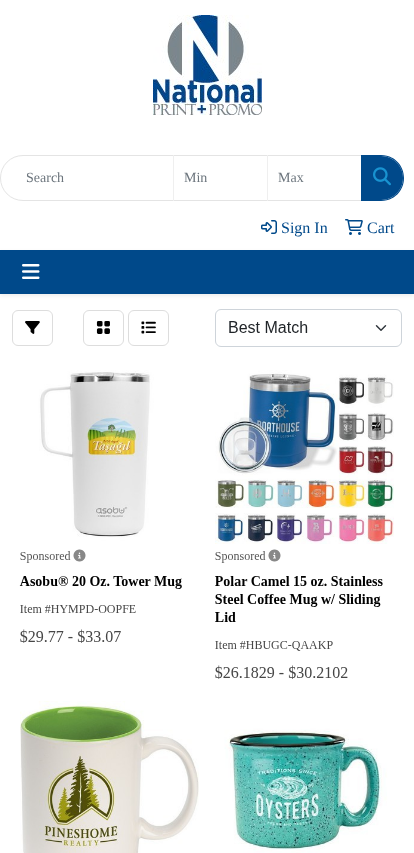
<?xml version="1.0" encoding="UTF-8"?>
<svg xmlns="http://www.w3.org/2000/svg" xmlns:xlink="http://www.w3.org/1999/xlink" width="414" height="853">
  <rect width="100%" height="100%" fill="#ffffff" />
  <image x="153" y="15" width="109" height="100" xlink:href="image1.png" />
  <path d="M 23 155.5 h 150.5 v 45 h -150.5 c -12.5 0 -22.5 -10 -22.5 -22.5 c 0 -12.5 10 -22.5 22.5 -22.5 z" fill="none" stroke="#e4e4e4" />
  <rect x="173" y="155" width="189" height="1" fill="#e4e4e4" />
  <rect x="173" y="200" width="189" height="1" fill="#e4e4e4" />
  <rect x="173" y="155" width="1" height="46" fill="#efefef" />
  <rect x="267" y="155" width="1" height="46" fill="#efefef" />
  <path d="M 361 156 h 20 c 12 0 22 10 22 22 c 0 12 -10 22 -22 22 h -20 z" fill="#00498a" />
  <path d="M 361 155 h 20 c 13 0 23 10 23 23 c 0 13 -10 23 -23 23 h -20 z m 0 1 h 20 c 12 0 22 10 22 22 c 0 12 -10 22 -22 22 h -20 z" fill="#00498a" fill-rule="evenodd" />
  <image x="373" y="167" width="18" height="19" xlink:href="image2.png" />
  <image x="261" y="220" width="16" height="14" xlink:href="image3.png" />
  <image x="345" y="219" width="18" height="16" xlink:href="image4.png" />
  <rect y="252" width="414" height="44" fill="#000000" fill-opacity="0.07" filter="blur(2px)" />
  <rect y="250" width="414" height="44" fill="#00498a" />
  <image x="22" y="264" width="18" height="15" xlink:href="image5.png" />
  <image x="12" y="309" width="390" height="544" xlink:href="image6.png" />
  <text x="26" y="182" style="font-family: Liberation Serif; font-size: 14px; fill: #6c757d">Search</text>
  <text x="184" y="182" style="font-family: Liberation Serif; font-size: 14px; fill: #6c757d">Min</text>
  <text x="278" y="182" style="font-family: Liberation Serif; font-size: 14px; fill: #6c757d">Max</text>
  <text x="281" y="233" style="font-family: Liberation Serif; font-size: 16px; fill: #00498a">Sign In</text>
  <text x="367" y="233" style="font-family: Liberation Serif; font-size: 16px; fill: #00498a">Cart</text>
</svg>
